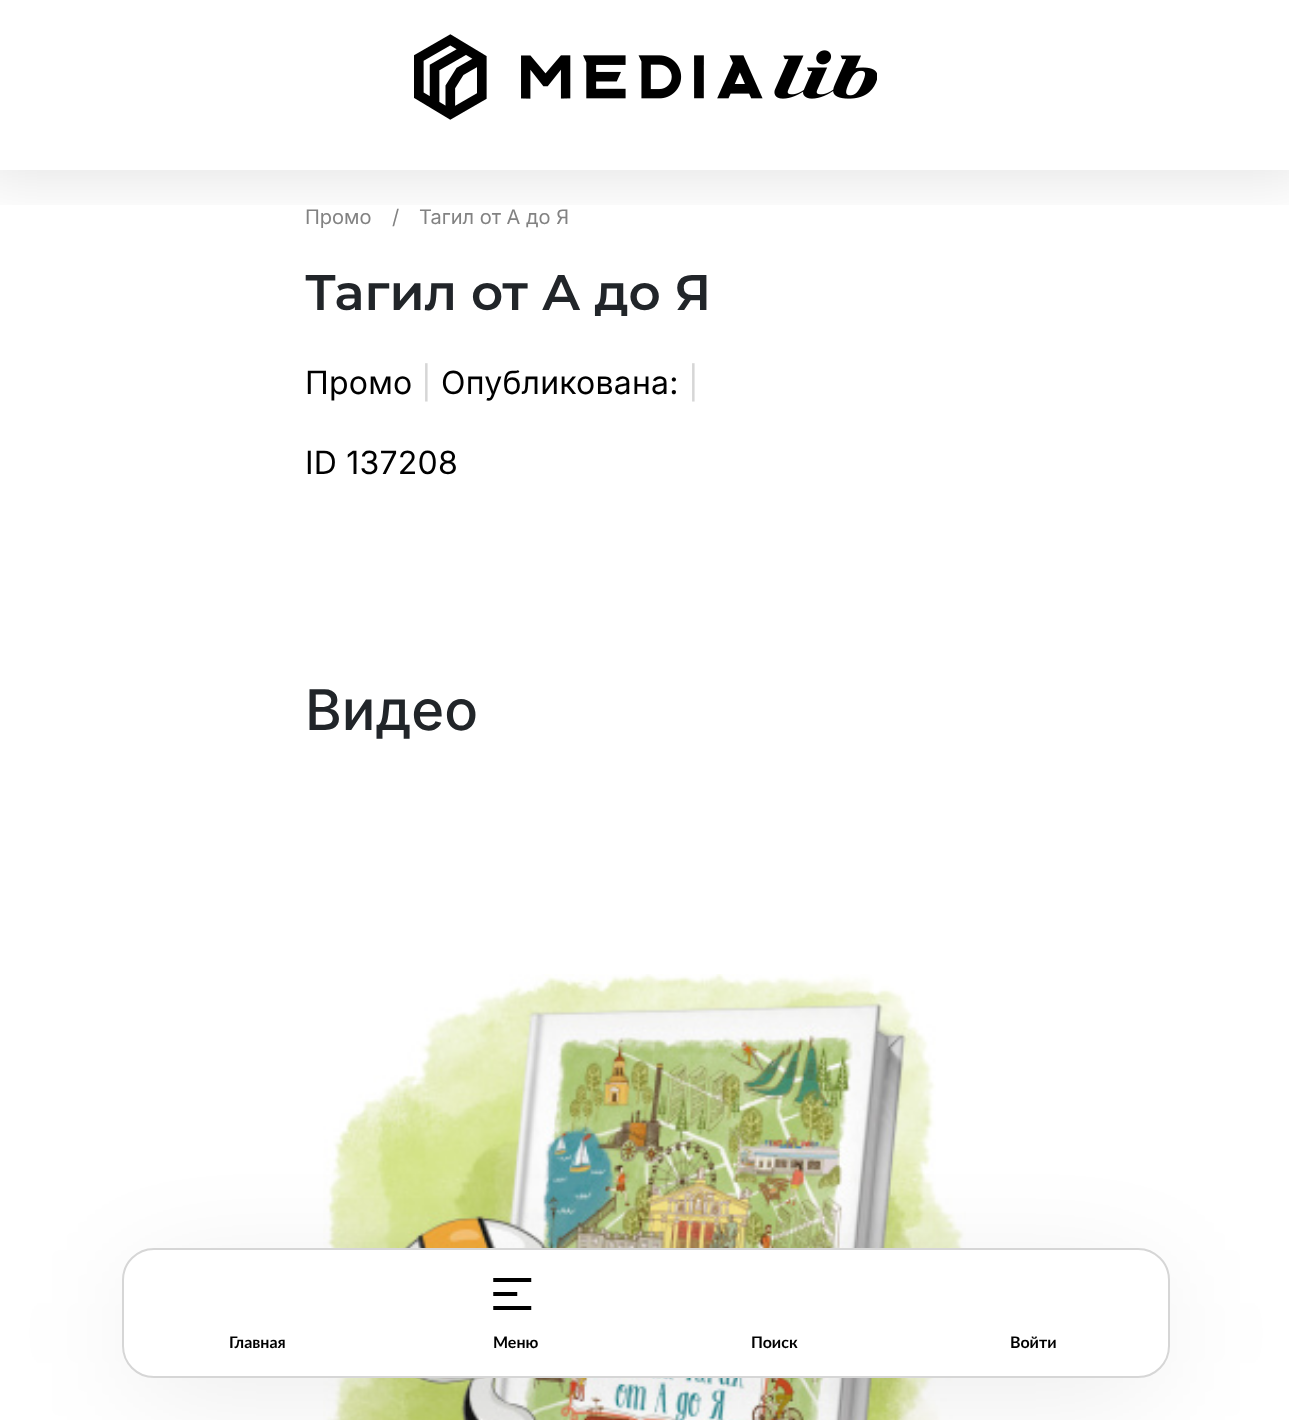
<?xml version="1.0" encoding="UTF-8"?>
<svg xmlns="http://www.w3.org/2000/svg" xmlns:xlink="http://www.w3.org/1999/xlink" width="1289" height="1420">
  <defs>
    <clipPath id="clip1"><rect x="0" y="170" width="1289" height="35" /></clipPath>
  </defs>
  <rect width="100%" height="100%" fill="#ffffff" />
  <image x="323" y="974" width="643" height="446" xlink:href="image1.png" />
  <g clip-path="url(#clip1)">
    <rect x="-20" y="-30" width="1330" height="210" fill="#000000" fill-opacity="0.1" filter="blur(30px)" />
  </g>
  <image x="414" y="34" width="463" height="86" xlink:href="image2.png" />
  <rect x="142" y="1288" width="1008" height="90" rx="12" fill="#000000" fill-opacity="0.1" filter="blur(60px)" />
  <rect x="123" y="1249" width="1046" height="128" rx="31" fill="#ffffff" stroke="#d6d6d6" stroke-width="2" />
  <image x="493" y="1278" width="39" height="32" xlink:href="image3.png" />
  <text x="305" y="224" style="font-family: Inter; font-size: 20px; fill: #828282">Промо</text>
  <text x="392" y="224" style="font-family: Inter; font-size: 20px; fill: #828282">/</text>
  <text x="419" y="224" style="font-family: Inter; font-size: 20px; fill: #828282">Тагил от А до Я</text>
  <text x="305" y="310" style="font-family: Montserrat; font-size: 50px; font-weight: 600; fill: #212529">Тагил от А до Я</text>
  <text x="305" y="394" style="font-family: Inter; font-size: 32px; letter-spacing: 0.2px; fill: #000000">Промо</text>
  <text x="421" y="394" style="font-family: Inter; font-size: 32px; letter-spacing: 0.2px; fill: #d6d6d6">|</text>
  <text x="441" y="394" style="font-family: Inter; font-size: 32px; letter-spacing: 0.2px; fill: #000000">Опубликована:</text>
  <text x="688" y="394" style="font-family: Inter; font-size: 32px; letter-spacing: 0.2px; fill: #d6d6d6">|</text>
  <text x="305" y="474" style="font-family: Inter; font-size: 32px; letter-spacing: 0.2px; fill: #000000">ID 137208</text>
  <text x="305" y="730" style="font-family: Inter; font-size: 56px; font-weight: 500; fill: #212529">Видео</text>
  <text x="229" y="1348" style="font-family: Lato; font-size: 16px; font-weight: bold; fill: #000000">Главная</text>
  <text x="493" y="1348" style="font-family: Lato; font-size: 16px; font-weight: bold; fill: #000000">Меню</text>
  <text x="751" y="1348" style="font-family: Lato; font-size: 16px; font-weight: bold; fill: #000000">Поиск</text>
  <text x="1010" y="1348" style="font-family: Lato; font-size: 16px; font-weight: bold; fill: #000000">Войти</text>
</svg>
